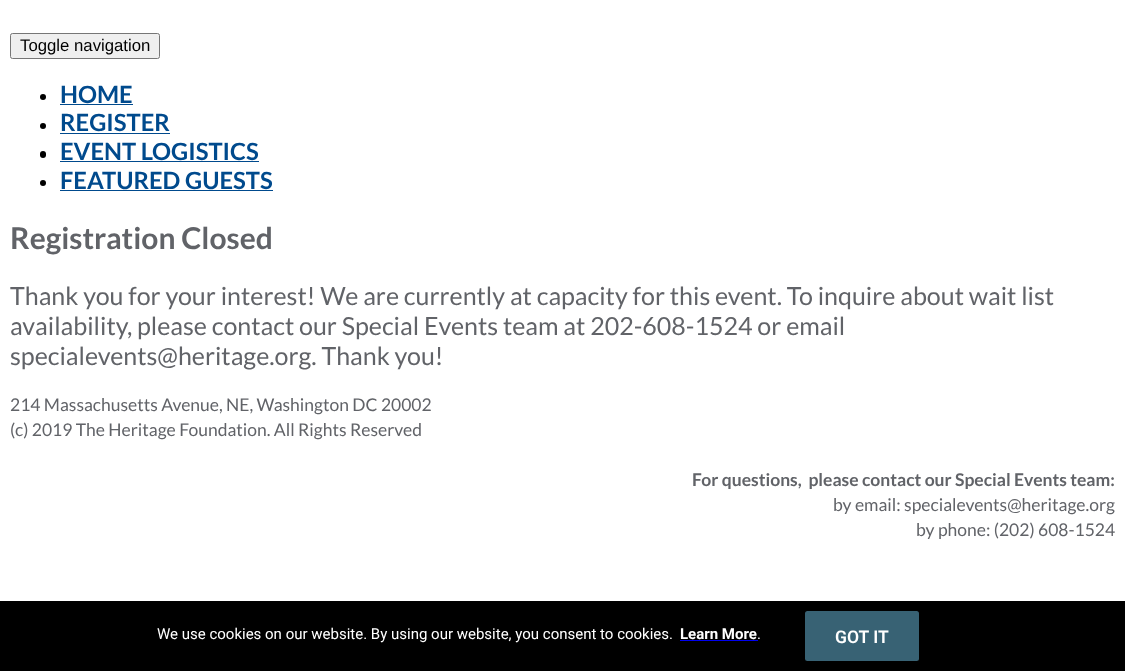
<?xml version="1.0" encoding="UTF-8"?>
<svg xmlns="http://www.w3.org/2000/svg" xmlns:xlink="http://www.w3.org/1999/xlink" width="1125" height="671">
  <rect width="100%" height="100%" fill="#ffffff" />
  <rect x="10.5" y="33.5" width="149" height="25" rx="2" fill="#efefef" stroke="#767676" />
  <circle cx="43" cy="97" r="3" fill="#000000" />
  <rect x="60" y="104" width="73" height="1" fill="#004a8d" />
  <circle cx="43" cy="126" r="3" fill="#000000" />
  <rect x="60" y="133" width="110" height="1" fill="#004a8d" />
  <rect x="40" y="151" width="6" height="7" rx="3" fill="#000000" />
  <rect x="60" y="161" width="199" height="1" fill="#004a8d" />
  <circle cx="43" cy="183" r="3" fill="#000000" />
  <rect x="60" y="190" width="213" height="1" fill="#004a8d" />
  <rect y="601" width="1125" height="70" fill="#000000" />
  <rect x="680" y="640" width="78" height="1" fill="#0000ee" />
  <rect x="805" y="611" width="114" height="50" rx="2.5" fill="#386274" />
  <text x="20" y="51" style="font-family: Liberation Sans; font-size: 16.75px; fill: #000000">Toggle navigation</text>
  <text x="60" y="103" style="font-family: Lato; font-size: 23.75px; font-weight: bold; fill: #004a8d">HOME</text>
  <text x="60" y="131" style="font-family: Lato; font-size: 23.75px; font-weight: bold; fill: #004a8d">REGISTER</text>
  <text x="60" y="160" style="font-family: Lato; font-size: 23.75px; font-weight: bold; fill: #004a8d">EVENT LOGISTICS</text>
  <text x="60" y="189" style="font-family: Lato; font-size: 23.75px; font-weight: bold; fill: #004a8d">FEATURED GUESTS</text>
  <text x="10" y="249" style="font-family: Lato; font-size: 30px; font-weight: bold; fill: #616368">Registration Closed</text>
  <text x="10" y="305" style="font-family: Lato; font-size: 25px; fill: #616368">Thank you for your interest! We are currently at capacity for this event. To inquire about wait list</text>
  <text x="10" y="335" style="font-family: Lato; font-size: 25px; fill: #616368">availability, please contact our Special Events team at 202-608-1524 or email</text>
  <text x="10" y="365" style="font-family: Lato; font-size: 25px; fill: #616368">specialevents@heritage.org. Thank you!</text>
  <text x="10" y="411" style="font-family: Lato; font-size: 17.5px; fill: #616368">214 Massachusetts Avenue, NE, Washington DC 20002</text>
  <text x="10" y="436" style="font-family: Lato; font-size: 17.5px; fill: #616368">(c) 2019 The Heritage Foundation. All Rights Reserved</text>
  <text x="692" y="486" style="font-family: Lato; font-size: 17.5px; font-weight: bold; fill: #616368" xml:space="preserve">For questions,  please contact our Special Events team:</text>
  <text x="833" y="511" style="font-family: Lato; font-size: 17.5px; fill: #616368">by email: specialevents@heritage.org</text>
  <text x="916" y="536" style="font-family: Lato; font-size: 17.5px; fill: #616368">by phone: (202) 608-1524</text>
  <text x="157" y="639" style="font-family: Roboto; font-size: 15px; fill: #ffffff">We use cookies on our website. By using our website, you consent to cookies.</text>
  <text x="680" y="639" style="font-family: Roboto; font-size: 15px; font-weight: bold; fill: #ffffff">Learn More</text>
  <text x="757" y="639" style="font-family: Roboto; font-size: 15px; fill: #ffffff">.</text>
  <text x="835" y="643" style="font-family: Roboto; font-size: 17.5px; font-weight: 600; fill: #ffffff">GOT IT</text>
</svg>
